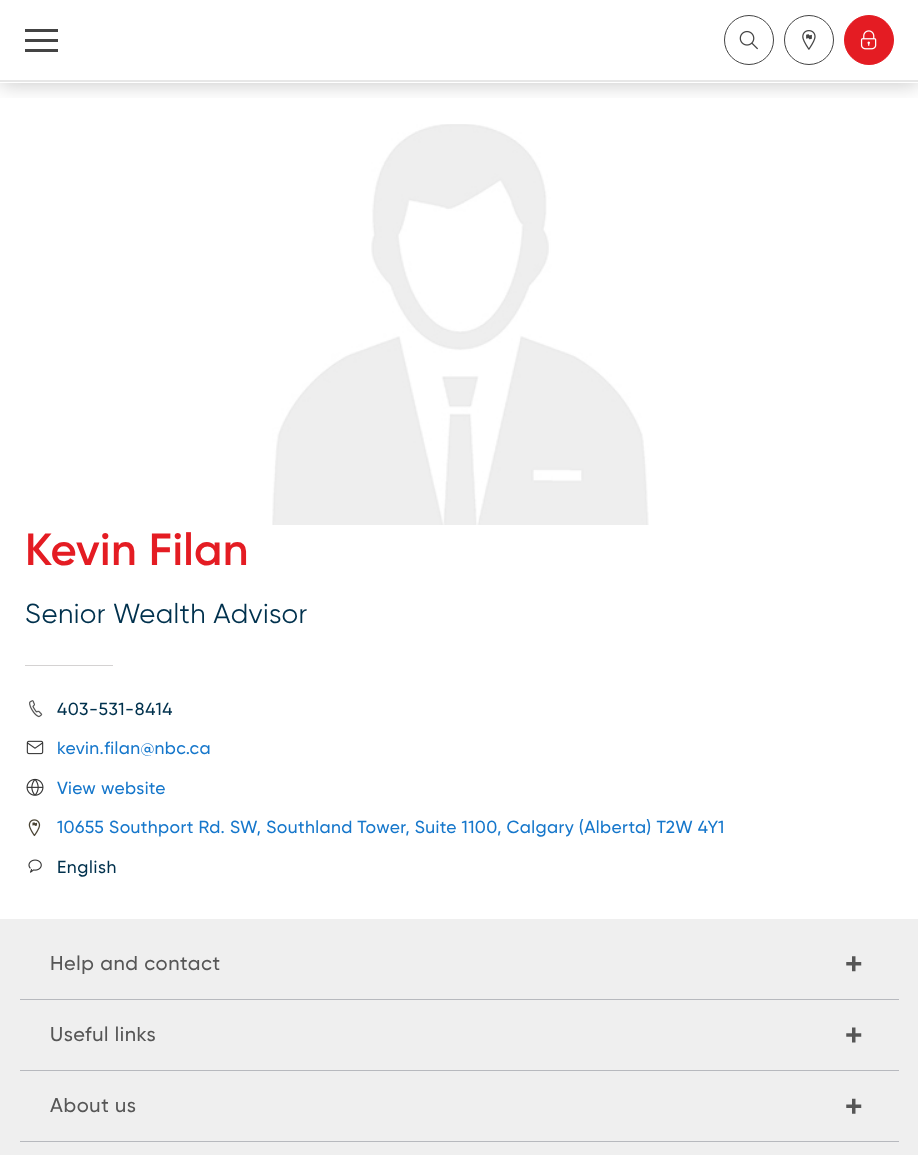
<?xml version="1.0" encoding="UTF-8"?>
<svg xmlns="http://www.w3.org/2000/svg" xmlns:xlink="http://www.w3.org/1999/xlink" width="918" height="1155">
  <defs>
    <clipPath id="clip1"><rect x="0" y="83" width="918" height="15" /></clipPath>
  </defs>
  <rect width="100%" height="100%" fill="#ffffff" />
  <g clip-path="url(#clip1)">
    <rect y="5" width="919" height="80" fill="#000000" fill-opacity="0.2" filter="blur(10px)" />
  </g>
  <rect x="25" y="29" width="33" height="3" fill="#444444" />
  <rect x="25" y="39" width="33" height="3" fill="#444444" />
  <rect x="25" y="49" width="33" height="3" fill="#444444" />
  <circle cx="749" cy="40" r="24.5" fill="none" stroke="#444444" />
  <image x="739" y="30" width="19" height="20" xlink:href="image1.png" />
  <circle cx="809" cy="40" r="24.5" fill="none" stroke="#444444" />
  <image x="802" y="30" width="14" height="20" xlink:href="image2.png" />
  <circle cx="869" cy="40" r="24.5" fill="#e41c23" stroke="#e41c23" />
  <image x="860" y="30" width="17" height="20" xlink:href="image3.png" />
  <rect y="82" width="918" height="1" fill="#ffffff" />
  <rect y="80" width="918" height="2" fill="#e7e7e7" />
  <image x="272" y="124" width="377" height="401" xlink:href="image4.png" />
  <rect x="25" y="665" width="88" height="1" fill="#d4d2d2" />
  <image x="29" y="700" width="14" height="18" xlink:href="image5.png" />
  <image x="26" y="740" width="18" height="15" xlink:href="image6.png" />
  <image x="26" y="778" width="18" height="18" xlink:href="image7.png" />
  <image x="28" y="819" width="13" height="18" xlink:href="image8.png" />
  <image x="28" y="859" width="14" height="14" xlink:href="image9.png" />
  <rect y="919" width="918" height="236" fill="#efefef" />
  <rect x="20" y="999" width="879" height="1" fill="#b7b9be" />
  <image x="846" y="956" width="16" height="16" xlink:href="image10.png" />
  <rect x="20" y="1070" width="879" height="1" fill="#b7b9be" />
  <image x="846" y="1027" width="16" height="16" xlink:href="image11.png" />
  <rect x="20" y="1141" width="879" height="1" fill="#b7b9be" />
  <image x="846" y="1098" width="16" height="16" xlink:href="image12.png" />
  <text x="25" y="565" style="font-family: Gilroy; font-size: 45px; font-weight: 600; letter-spacing: 0.38px; fill: #e41c23">Kevin Filan</text>
  <text x="25" y="623" style="font-family: Gilroy; font-size: 27.5px; letter-spacing: 0.38px; fill: #00314d">Senior Wealth Advisor</text>
  <text x="57" y="715" style="font-family: Gilroy; font-size: 17.5px; font-weight: 500; letter-spacing: 0.6px; fill: #00314d">403-531-8414</text>
  <text x="57" y="754" style="font-family: Gilroy; font-size: 17.5px; font-weight: 500; letter-spacing: 0.38px; fill: #1677cb">kevin.filan@nbc.ca</text>
  <text x="57" y="794" style="font-family: Gilroy; font-size: 17.5px; font-weight: 500; letter-spacing: 0.38px; fill: #1677cb">View website</text>
  <text x="57" y="833" style="font-family: Gilroy; font-size: 17.5px; font-weight: 500; letter-spacing: 0.38px; fill: #1677cb">10655 Southport Rd. SW, Southland Tower, Suite 1100, Calgary (Alberta) T2W 4Y1</text>
  <text x="57" y="873" style="font-family: Gilroy; font-size: 17.5px; font-weight: 500; letter-spacing: 0.6px; fill: #00314d">English</text>
  <text x="50" y="970" style="font-family: Gilroy; font-size: 20px; font-weight: 500; letter-spacing: 0.6px; fill: #565656">Help and contact</text>
  <text x="50" y="1041" style="font-family: Gilroy; font-size: 20px; font-weight: 500; letter-spacing: 0.6px; fill: #565656">Useful links</text>
  <text x="50" y="1112" style="font-family: Gilroy; font-size: 20px; font-weight: 500; letter-spacing: 0.6px; fill: #565656">About us</text>
</svg>
